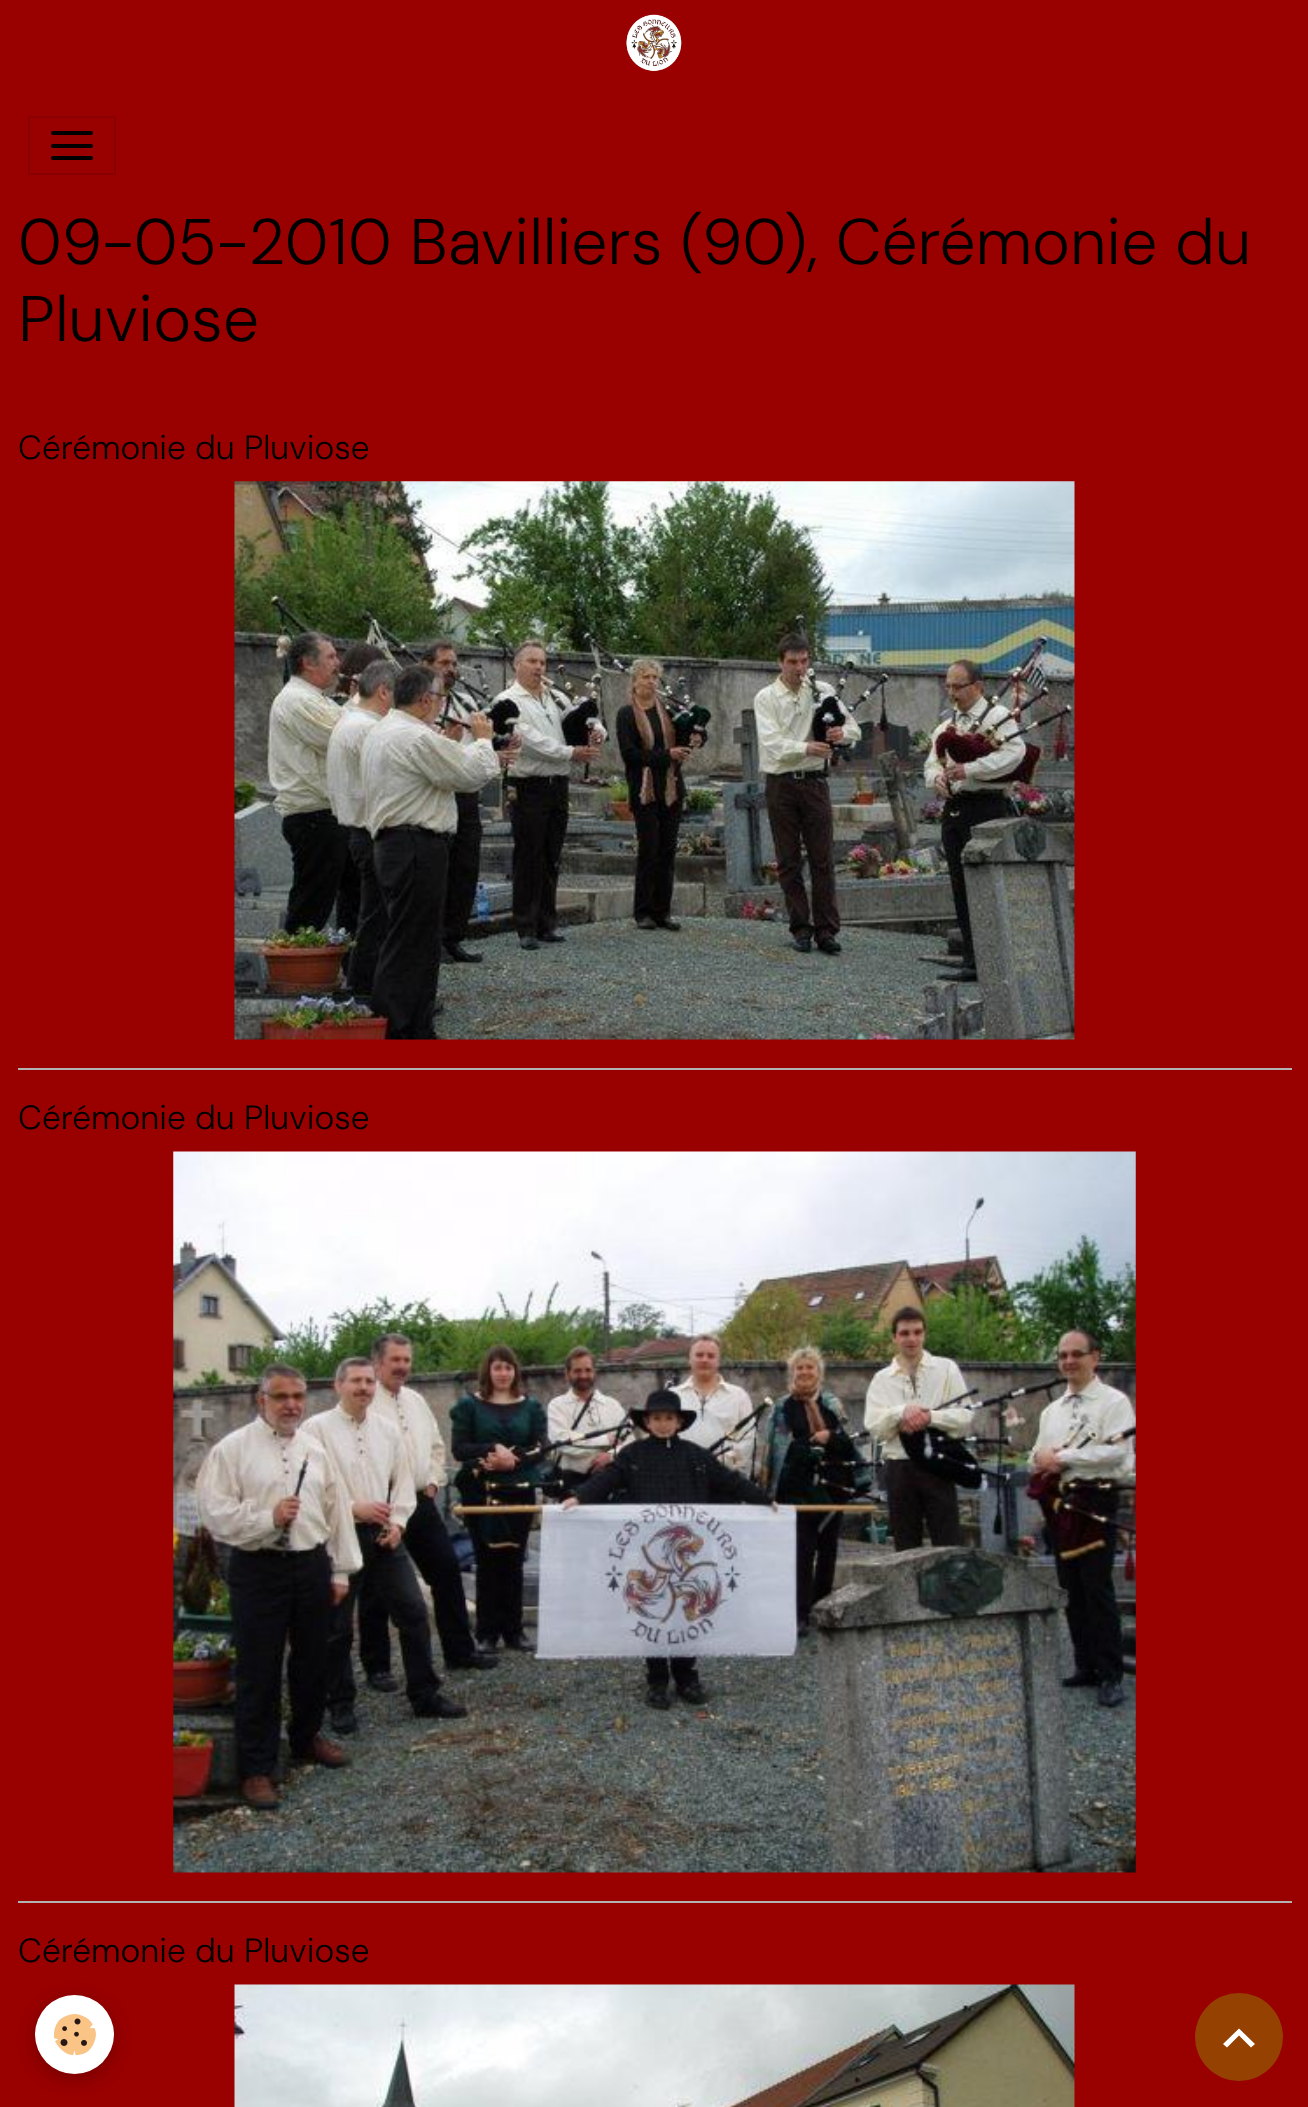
<?xml version="1.0" encoding="UTF-8"?>
<svg xmlns="http://www.w3.org/2000/svg" xmlns:xlink="http://www.w3.org/1999/xlink" width="1308" height="2107">
  <rect width="100%" height="100%" fill="#990000" />
  <image x="626" y="14" width="56" height="58" xlink:href="image1.png" />
  <rect x="29" y="117" width="86" height="57" fill="none" stroke="#8a0000" stroke-width="2" />
  <rect x="51" y="131" width="42" height="4" rx="2" fill="#000000" />
  <rect x="51" y="144" width="42" height="4" rx="2" fill="#000000" />
  <rect x="51" y="156" width="42" height="4" rx="2" fill="#000000" />
  <image x="234" y="481" width="841" height="559" xlink:href="image2.png" />
  <rect x="18" y="1068" width="1274" height="2" fill="#b3b3b3" />
  <image x="173" y="1151" width="963" height="722" xlink:href="image3.png" />
  <rect x="18" y="1901" width="1274" height="2" fill="#b3b3b3" />
  <image x="234" y="1984" width="841" height="123" xlink:href="image4.png" />
  <rect x="35" y="2000" width="79" height="79" rx="39.5" fill="#000000" fill-opacity="0.24" filter="blur(9px)" />
  <circle cx="74.5" cy="2034.5" r="39.5" fill="#ffffff" />
  <image x="53" y="2014" width="43" height="42" xlink:href="image5.png" />
  <circle cx="1239" cy="2037" r="44" fill="#954102" />
  <path d="M 1239 2028.5 l 16 15.5 l -4 3.5 l -12 -12 l -12 12 l -4 -3.5 z" fill="#ffffff" />
  <text x="18" y="264" style="font-family: DM Sans; font-size: 64.4px; font-weight: 300; fill: #000000">09-05-2010 Bavilliers (90), Cérémonie du</text>
  <text x="18" y="341" style="font-family: DM Sans; font-size: 64.4px; font-weight: 300; fill: #000000">Pluviose</text>
  <text x="18" y="459" style="font-family: DM Sans; font-size: 33.6px; font-weight: 300; fill: #000000">Cérémonie du Pluviose</text>
  <text x="18" y="1129" style="font-family: DM Sans; font-size: 33.6px; font-weight: 300; fill: #000000">Cérémonie du Pluviose</text>
  <text x="18" y="1962" style="font-family: DM Sans; font-size: 33.6px; font-weight: 300; fill: #000000">Cérémonie du Pluviose</text>
</svg>
